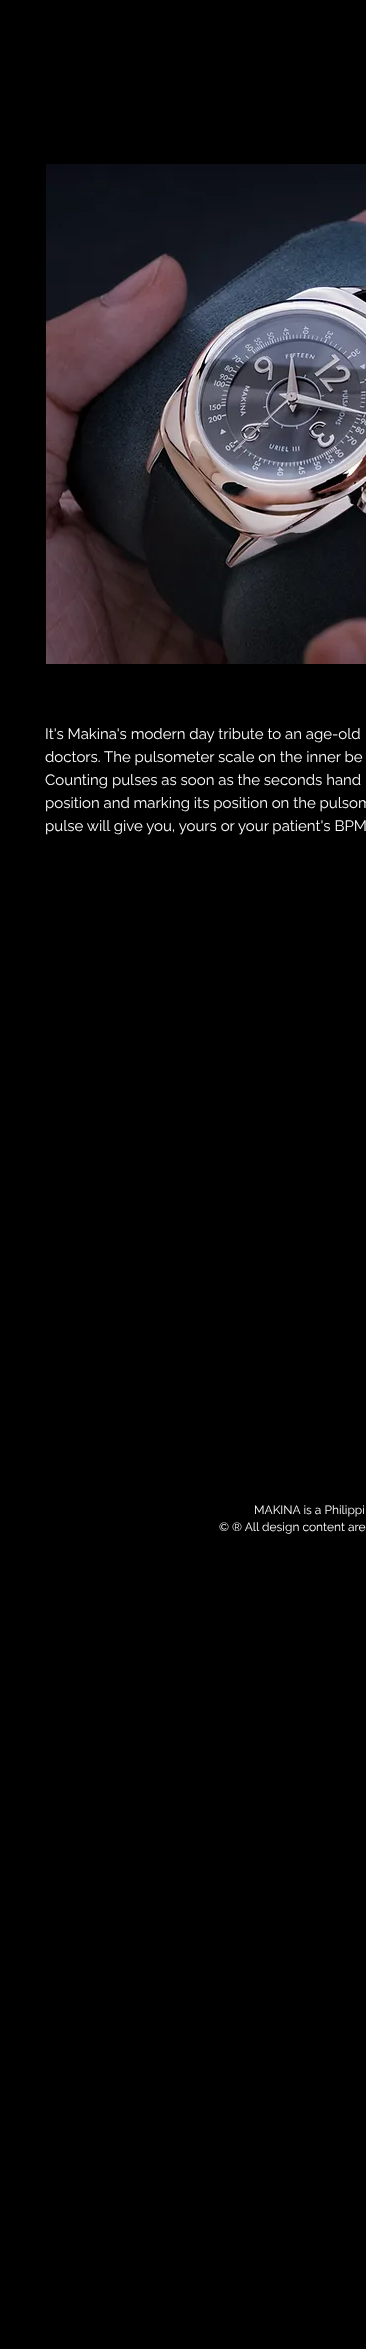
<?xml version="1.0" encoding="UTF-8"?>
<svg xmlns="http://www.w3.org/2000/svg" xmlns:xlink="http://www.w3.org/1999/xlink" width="366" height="2349">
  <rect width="100%" height="100%" fill="#000000" />
  <image x="46" y="164" width="320" height="500" xlink:href="image1.png" />
  <text x="45" y="739" style="font-family: Raleway; font-size: 15px; fill: #ffffff">It's Makina's modern day tribute to an age-old</text>
  <text x="45" y="762" style="font-family: Raleway; font-size: 15px; fill: #ffffff">doctors. The pulsometer scale on the inner be</text>
  <text x="45" y="785" style="font-family: Raleway; font-size: 15px; fill: #ffffff">Counting pulses as soon as the seconds hand</text>
  <text x="45" y="808" style="font-family: Raleway; font-size: 15px; fill: #ffffff">position and marking its position on the pulsom</text>
  <text x="45" y="831" style="font-family: Raleway; font-size: 15px; fill: #ffffff">pulse will give you, yours or your patient's BPM</text>
  <text x="254" y="1514" style="font-family: Raleway; font-size: 12px; fill: #ffffff">MAKINA is a Philippi</text>
  <text x="219" y="1531" style="font-family: Raleway; font-size: 12px; fill: #ffffff">© ® All design content are</text>
</svg>
